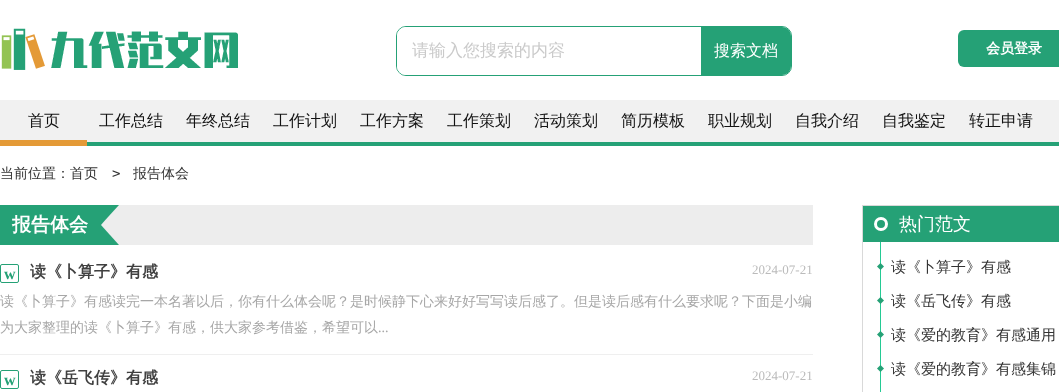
<?xml version="1.0" encoding="UTF-8"?>
<svg xmlns="http://www.w3.org/2000/svg" xmlns:xlink="http://www.w3.org/1999/xlink" width="1059" height="392">
  <rect width="100%" height="100%" fill="#ffffff" />
  <image x="1" y="28" width="237" height="42" xlink:href="image1.png" />
  <rect x="396.5" y="26.5" width="395" height="49" rx="9.5" fill="none" stroke="#25a176" />
  <path d="M 406 27 h 295 v 48 h -295 c -5 0 -9 -4 -9 -9 v -30 c 0 -5 4 -9 9 -9 z" fill="#ffffff" />
  <path d="M 701 27 h 81 c 5 0 9 4 9 9 v 30 c 0 5 -4 9 -9 9 h -81 z" fill="#25a176" />
  <rect x="958" y="30" width="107" height="37" rx="6" fill="#25a176" />
  <rect y="100" width="1059" height="42" fill="#f1f1f1" />
  <rect x="87" y="142" width="972" height="4" fill="#25a176" />
  <rect y="140" width="87" height="6" fill="#e49a37" />
  <rect x="101" y="205" width="712" height="40" fill="#ededed" />
  <image x="0" y="205" width="119" height="40" xlink:href="image2.png" />
  <rect y="354" width="813" height="1" fill="#efefef" />
  <rect x="0.5" y="264.5" width="18" height="18" rx="1.5" fill="none" stroke="#25a176" />
  <rect x="0.5" y="370.5" width="18" height="18" rx="1.5" fill="none" stroke="#25a176" />
  <rect x="862.5" y="205.5" width="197" height="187" fill="none" stroke="#d9d9d9" />
  <rect x="863" y="206" width="196" height="36" fill="#25a176" />
  <circle cx="881" cy="224" r="5.5" fill="none" stroke="#ffffff" stroke-width="3" />
  <rect x="880" y="242" width="1" height="150" fill="#24ca94" />
  <image x="877" y="263" width="7" height="7" xlink:href="image3.png" />
  <image x="877" y="297" width="7" height="7" xlink:href="image3.png" />
  <image x="877" y="331" width="7" height="7" xlink:href="image3.png" />
  <image x="877" y="365" width="7" height="7" xlink:href="image3.png" />
  <text x="412" y="56" style="font-family: WenQuanYi Zen Hei; font-size: 17px; font-weight: 500; fill: #cacaca">请输入您搜索的内容</text>
  <text x="714" y="56" style="font-family: WenQuanYi Zen Hei; font-size: 16px; font-weight: 500; fill: #ffffff">搜索文档</text>
  <text x="986" y="53" style="font-family: WenQuanYi Zen Hei; font-size: 14px; font-weight: bold; fill: #ffffff">会员登录</text>
  <text x="28" y="126" style="font-family: WenQuanYi Zen Hei; font-size: 16px; font-weight: 500; fill: #121212">首页</text>
  <text x="99" y="126" style="font-family: WenQuanYi Zen Hei; font-size: 16px; font-weight: 500; fill: #121212">工作总结</text>
  <text x="186" y="126" style="font-family: WenQuanYi Zen Hei; font-size: 16px; font-weight: 500; fill: #121212">年终总结</text>
  <text x="273" y="126" style="font-family: WenQuanYi Zen Hei; font-size: 16px; font-weight: 500; fill: #121212">工作计划</text>
  <text x="360" y="126" style="font-family: WenQuanYi Zen Hei; font-size: 16px; font-weight: 500; fill: #121212">工作方案</text>
  <text x="447" y="126" style="font-family: WenQuanYi Zen Hei; font-size: 16px; font-weight: 500; fill: #121212">工作策划</text>
  <text x="534" y="126" style="font-family: WenQuanYi Zen Hei; font-size: 16px; font-weight: 500; fill: #121212">活动策划</text>
  <text x="621" y="126" style="font-family: WenQuanYi Zen Hei; font-size: 16px; font-weight: 500; fill: #121212">简历模板</text>
  <text x="708" y="126" style="font-family: WenQuanYi Zen Hei; font-size: 16px; font-weight: 500; fill: #121212">职业规划</text>
  <text x="795" y="126" style="font-family: WenQuanYi Zen Hei; font-size: 16px; font-weight: 500; fill: #121212">自我介绍</text>
  <text x="882" y="126" style="font-family: WenQuanYi Zen Hei; font-size: 16px; font-weight: 500; fill: #121212">自我鉴定</text>
  <text x="969" y="126" style="font-family: WenQuanYi Zen Hei; font-size: 16px; font-weight: 500; fill: #121212">转正申请</text>
  <text x="0" y="178" style="font-family: WenQuanYi Zen Hei; font-size: 14px; font-weight: 500; fill: #333333">当前位置：首页</text>
  <text x="112" y="178" style="font-family: DejaVu Sans Mono; font-size: 14px; fill: #333333">&gt;</text>
  <text x="133" y="178" style="font-family: WenQuanYi Zen Hei; font-size: 14px; font-weight: 500; fill: #333333">报告体会</text>
  <text x="12" y="231" style="font-family: WenQuanYi Zen Hei; font-size: 19px; font-weight: bold; fill: #ffffff">报告体会</text>
  <text x="4" y="279" style="font-family: Liberation Serif; font-size: 16px; font-weight: bold; fill: #25a176">w</text>
  <text x="30" y="277" style="font-family: WenQuanYi Zen Hei; font-size: 16px; font-weight: bold; fill: #404040">读《卜算子》有感</text>
  <text x="752" y="274" style="font-family: Liberation Serif; font-size: 13px; fill: #bbbbbb">2024-07-21</text>
  <text x="0" y="306" style="font-family: WenQuanYi Zen Hei; font-size: 14px; font-weight: 500; fill: #a7a7a7">读《卜算子》有感读完一本名著以后，你有什么体会呢？是时候静下心来好好写写读后感了。但是读后感有什么要求呢？下面是小编</text>
  <text x="0" y="332" style="font-family: WenQuanYi Zen Hei; font-size: 14px; font-weight: 500; fill: #a7a7a7">为大家整理的读《卜算子》有感，供大家参考借鉴，希望可以</text>
  <text x="378" y="332" style="font-family: Liberation Serif; font-size: 14px; fill: #a7a7a7">...</text>
  <text x="4" y="385" style="font-family: Liberation Serif; font-size: 16px; font-weight: bold; fill: #25a176">w</text>
  <text x="30" y="383" style="font-family: WenQuanYi Zen Hei; font-size: 16px; font-weight: bold; fill: #404040">读《岳飞传》有感</text>
  <text x="752" y="380" style="font-family: Liberation Serif; font-size: 13px; fill: #bbbbbb">2024-07-21</text>
  <text x="899" y="230" style="font-family: WenQuanYi Zen Hei; font-size: 18px; font-weight: 500; fill: #ffffff">热门范文</text>
  <text x="891" y="272" style="font-family: WenQuanYi Zen Hei; font-size: 15px; font-weight: 500; fill: #333333">读《卜算子》有感</text>
  <text x="891" y="306" style="font-family: WenQuanYi Zen Hei; font-size: 15px; font-weight: 500; fill: #333333">读《岳飞传》有感</text>
  <text x="891" y="340" style="font-family: WenQuanYi Zen Hei; font-size: 15px; font-weight: 500; fill: #333333">读《爱的教育》有感通用</text>
  <text x="891" y="374" style="font-family: WenQuanYi Zen Hei; font-size: 15px; font-weight: 500; fill: #333333">读《爱的教育》有感集锦</text>
</svg>
